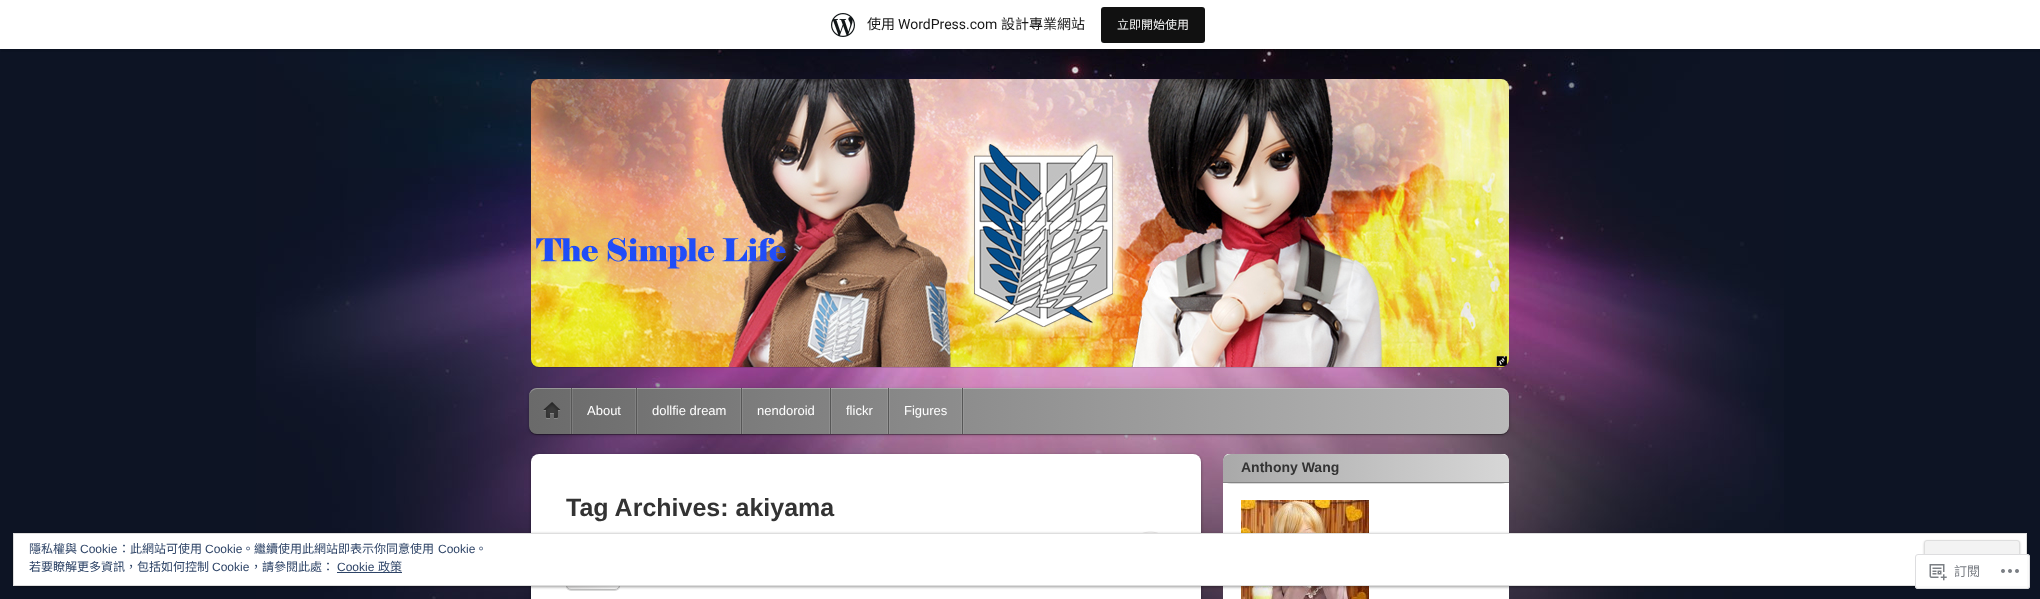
<?xml version="1.0" encoding="UTF-8"?>
<svg xmlns="http://www.w3.org/2000/svg" xmlns:xlink="http://www.w3.org/1999/xlink" width="2040" height="599">
  <defs>
    <linearGradient id="g1" gradientUnits="userSpaceOnUse" x1="1509" y1="411" x2="529" y2="411"><stop offset="0" stop-color="#b9b9b9" /><stop offset="1" stop-color="#6a6a6a" /></linearGradient>
    <clipPath id="clip1"><rect x="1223" y="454" width="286" height="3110" /></clipPath>
    <clipPath id="clip2"><rect x="1223" y="454" width="286" height="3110" /></clipPath>
    <linearGradient id="g2" gradientUnits="userSpaceOnUse" x1="1509" y1="468" x2="1223" y2="468"><stop offset="0" stop-color="#d7d7d7" /><stop offset="1" stop-color="#a9a9a9" /></linearGradient>
    <clipPath id="clip3"><rect x="566" y="536" width="54" height="54" rx="5" /></clipPath>
    <linearGradient id="g3" gradientUnits="userSpaceOnUse" x1="619" y1="563" x2="567" y2="563"><stop offset="0" stop-color="#ffffff" /><stop offset="1" stop-color="#ecebeb" /></linearGradient>
  </defs>
  <rect width="100%" height="100%" fill="#0d1424" />
  <image x="256" y="49" width="1528" height="550" xlink:href="image1.png" />
  <path d="M 1 49 v 3 h 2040 v -49 h -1 v 46 z" fill="#000000" fill-opacity="0.08" />
  <rect width="2040" height="49" fill="#ffffff" />
  <image x="831" y="13" width="24" height="24" xlink:href="image2.png" />
  <rect x="1101" y="7" width="104" height="36" rx="3" fill="#111111" />
  <rect x="531" y="80" width="978" height="288" rx="8" fill="#000000" fill-opacity="0.15" filter="blur(0.5px)" />
  <image x="531" y="79" width="978" height="288" xlink:href="image3.png" />
  <rect x="529" y="389" width="980" height="46" rx="8" fill="#000000" fill-opacity="0.3" filter="blur(1.5px)" />
  <path d="M 529 426 c 0 5 3 9 8 9 h 964 c 5 0 8 -4 8 -9 c 0 4 -4 8 -8 8 h -964 c -4 0 -8 -4 -8 -8 z" fill="#000000" fill-opacity="0.3" />
  <rect x="529" y="388" width="980" height="46" rx="8" fill="url(#g1)" />
  <path d="M 537 389 h 964 c 4 0 8 4 8 8 c 0 -5 -3 -9 -8 -9 h -964 c -5 0 -8 4 -8 9 c 0 -4 4 -8 8 -8 z" fill="#ffffff" fill-opacity="0.3" />
  <rect x="572" y="388" width="1" height="46" fill="#ffffff" fill-opacity="0.1" />
  <rect x="570" y="388" width="1" height="46" fill="#ffffff" fill-opacity="0.1" />
  <rect x="571" y="388" width="1" height="46" fill="#575757" />
  <image x="543" y="402" width="18" height="17" xlink:href="image4.png" />
  <rect x="637" y="388" width="1" height="46" fill="#ffffff" fill-opacity="0.1" />
  <rect x="635" y="388" width="1" height="46" fill="#ffffff" fill-opacity="0.1" />
  <rect x="636" y="388" width="1" height="46" fill="#575757" />
  <rect x="742" y="388" width="1" height="46" fill="#ffffff" fill-opacity="0.1" />
  <rect x="740" y="388" width="1" height="46" fill="#ffffff" fill-opacity="0.1" />
  <rect x="741" y="388" width="1" height="46" fill="#575757" />
  <rect x="831" y="388" width="1" height="46" fill="#ffffff" fill-opacity="0.1" />
  <rect x="829" y="388" width="1" height="46" fill="#ffffff" fill-opacity="0.1" />
  <rect x="830" y="388" width="1" height="46" fill="#575757" />
  <rect x="889" y="388" width="1" height="46" fill="#ffffff" fill-opacity="0.1" />
  <rect x="887" y="388" width="1" height="46" fill="#ffffff" fill-opacity="0.1" />
  <rect x="888" y="388" width="1" height="46" fill="#575757" />
  <rect x="963" y="388" width="1" height="46" fill="#ffffff" fill-opacity="0.1" />
  <rect x="961" y="388" width="1" height="46" fill="#ffffff" fill-opacity="0.1" />
  <rect x="962" y="388" width="1" height="46" fill="#575757" />
  <g clip-path="url(#clip1)">
    <rect x="1223" y="455" width="286" height="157" rx="8" fill="#000000" fill-opacity="0.4" filter="blur(1.5px)" />
  </g>
  <rect x="1223" y="454" width="286" height="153" rx="8" fill="#ffffff" />
  <rect x="1223" y="454" width="286" height="30" rx="8" fill="#000000" fill-opacity="0.15" filter="blur(0.5px)" />
  <g clip-path="url(#clip2)">
    <path d="M 1231 453 h 270 c 4.5 0 8 3.5 8 8 v 22 h -286 v -22 c 0 -4.5 3.5 -8 8 -8 z" fill="url(#g2)" />
    <path d="M 1231 453 c -4 0 -8 4 -8 8 c 0 -4 4 -7 8 -7 h 270 c 4 0 8 3 8 7 c 0 -4 -4 -8 -8 -8 z" fill="#f5f5f5" />
  </g>
  <rect x="1223" y="482" width="286" height="1" fill="#848484" />
  <image x="1241" y="500" width="128" height="99" xlink:href="image5.png" />
  <rect x="531" y="455" width="670" height="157" rx="8" fill="#000000" fill-opacity="0.4" filter="blur(1.5px)" />
  <rect x="531" y="454" width="670" height="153" rx="8" fill="#ffffff" />
  <image x="1142" y="531" width="16" height="2" xlink:href="image6.png" />
  <rect x="566" y="537" width="54" height="54" rx="5" fill="#000000" fill-opacity="0.15" filter="blur(0.5px)" />
  <g clip-path="url(#clip3)">
    <rect x="567" y="586" width="52" height="4" fill="url(#g3)" />
  </g>
  <rect x="566.5" y="536.5" width="53" height="53" rx="4.5" fill="none" stroke="#bebebe" />
  <rect x="13" y="534" width="2014" height="53" rx="8" fill="#000000" fill-opacity="0.4" filter="blur(1.5px)" />
  <rect x="13.5" y="533.5" width="2013" height="52" fill="#ffffff" stroke="#dedede" />
  <rect x="1924" y="541" width="96" height="39" rx="3" fill="#000000" fill-opacity="0.2" filter="blur(1px)" />
  <rect x="1924.5" y="540.5" width="95" height="38" rx="2.5" fill="#f3f3f3" stroke="#dedede" />
  <rect x="337" y="572" width="65" height="1" fill="#2e4467" />
  <rect x="1915" y="554" width="115" height="35" rx="3" fill="#ffffff" fill-opacity="0.98" />
  <rect x="1915.5" y="554.5" width="114" height="34" rx="2.5" fill="none" stroke="#dcdcde" stroke-opacity="0.98" />
  <image x="1929" y="564" width="18" height="17" xlink:href="image7.png" />
  <image x="2001" y="569" width="18" height="4" xlink:href="image8.png" />
  <text x="867" y="29" style="font-family: Noto Sans CJK TC; font-size: 14px; fill: #171717">使用</text>
  <text x="898" y="29" style="font-family: Roboto; font-size: 14px; fill: #171717">WordPress.com</text>
  <text x="1001" y="29" style="font-family: Noto Sans CJK TC; font-size: 14px; fill: #171717">設計專業網站</text>
  <text x="1117" y="29" style="font-family: Noto Sans CJK TC; font-size: 12px; fill: #f6f7f7">立即開始使用</text>
  <text x="587" y="415" style="font-family: Liberation Sans; font-size: 13px; fill: #ffffff">About</text>
  <text x="652" y="415" style="font-family: Liberation Sans; font-size: 13px; fill: #ffffff">dollfie dream</text>
  <text x="757" y="415" style="font-family: Liberation Sans; font-size: 13px; fill: #ffffff">nendoroid</text>
  <text x="846" y="415" style="font-family: Liberation Sans; font-size: 13px; fill: #ffffff">flickr</text>
  <text x="904" y="415" style="font-family: Liberation Sans; font-size: 13px; fill: #ffffff">Figures</text>
  <text x="1241" y="472" style="font-family: Liberation Sans; font-size: 14px; font-weight: bold; fill: #333333">Anthony Wang</text>
  <text x="566" y="516" style="font-family: Liberation Sans; font-size: 25px; font-weight: bold; fill: #333333">Tag Archives: akiyama</text>
  <text x="29" y="553" style="font-family: Noto Sans CJK TC; font-size: 12px; fill: #2e4467">隱私權與</text>
  <text x="80" y="553" style="font-family: Liberation Sans; font-size: 12px; fill: #2e4467">Cookie</text>
  <text x="118" y="553" style="font-family: Noto Sans CJK TC; font-size: 12px; fill: #2e4467">：此網站可使用</text>
  <text x="205" y="553" style="font-family: Liberation Sans; font-size: 12px; fill: #2e4467">Cookie</text>
  <text x="242" y="553" style="font-family: Noto Sans CJK TC; font-size: 12px; fill: #2e4467">。繼續使用此網站即表示你同意使用</text>
  <text x="438" y="553" style="font-family: Liberation Sans; font-size: 12px; fill: #2e4467">Cookie</text>
  <text x="475" y="553" style="font-family: Noto Sans CJK TC; font-size: 12px; fill: #2e4467">。</text>
  <text x="29" y="571" style="font-family: Noto Sans CJK TC; font-size: 12px; fill: #2e4467">若要瞭解更多資訊，包括如何控制</text>
  <text x="212" y="571" style="font-family: Liberation Sans; font-size: 12px; fill: #2e4467">Cookie</text>
  <text x="250" y="571" style="font-family: Noto Sans CJK TC; font-size: 12px; fill: #2e4467">，請參閱此處：</text>
  <text x="337" y="571" style="font-family: Liberation Sans; font-size: 12px; fill: #2e4467">Cookie</text>
  <text x="378" y="571" style="font-family: Noto Sans CJK TC; font-size: 12px; fill: #2e4467">政策</text>
  <text x="1954" y="576" style="font-family: Noto Sans CJK TC; font-size: 13px; fill: #7a7e84">訂閱</text>
</svg>
